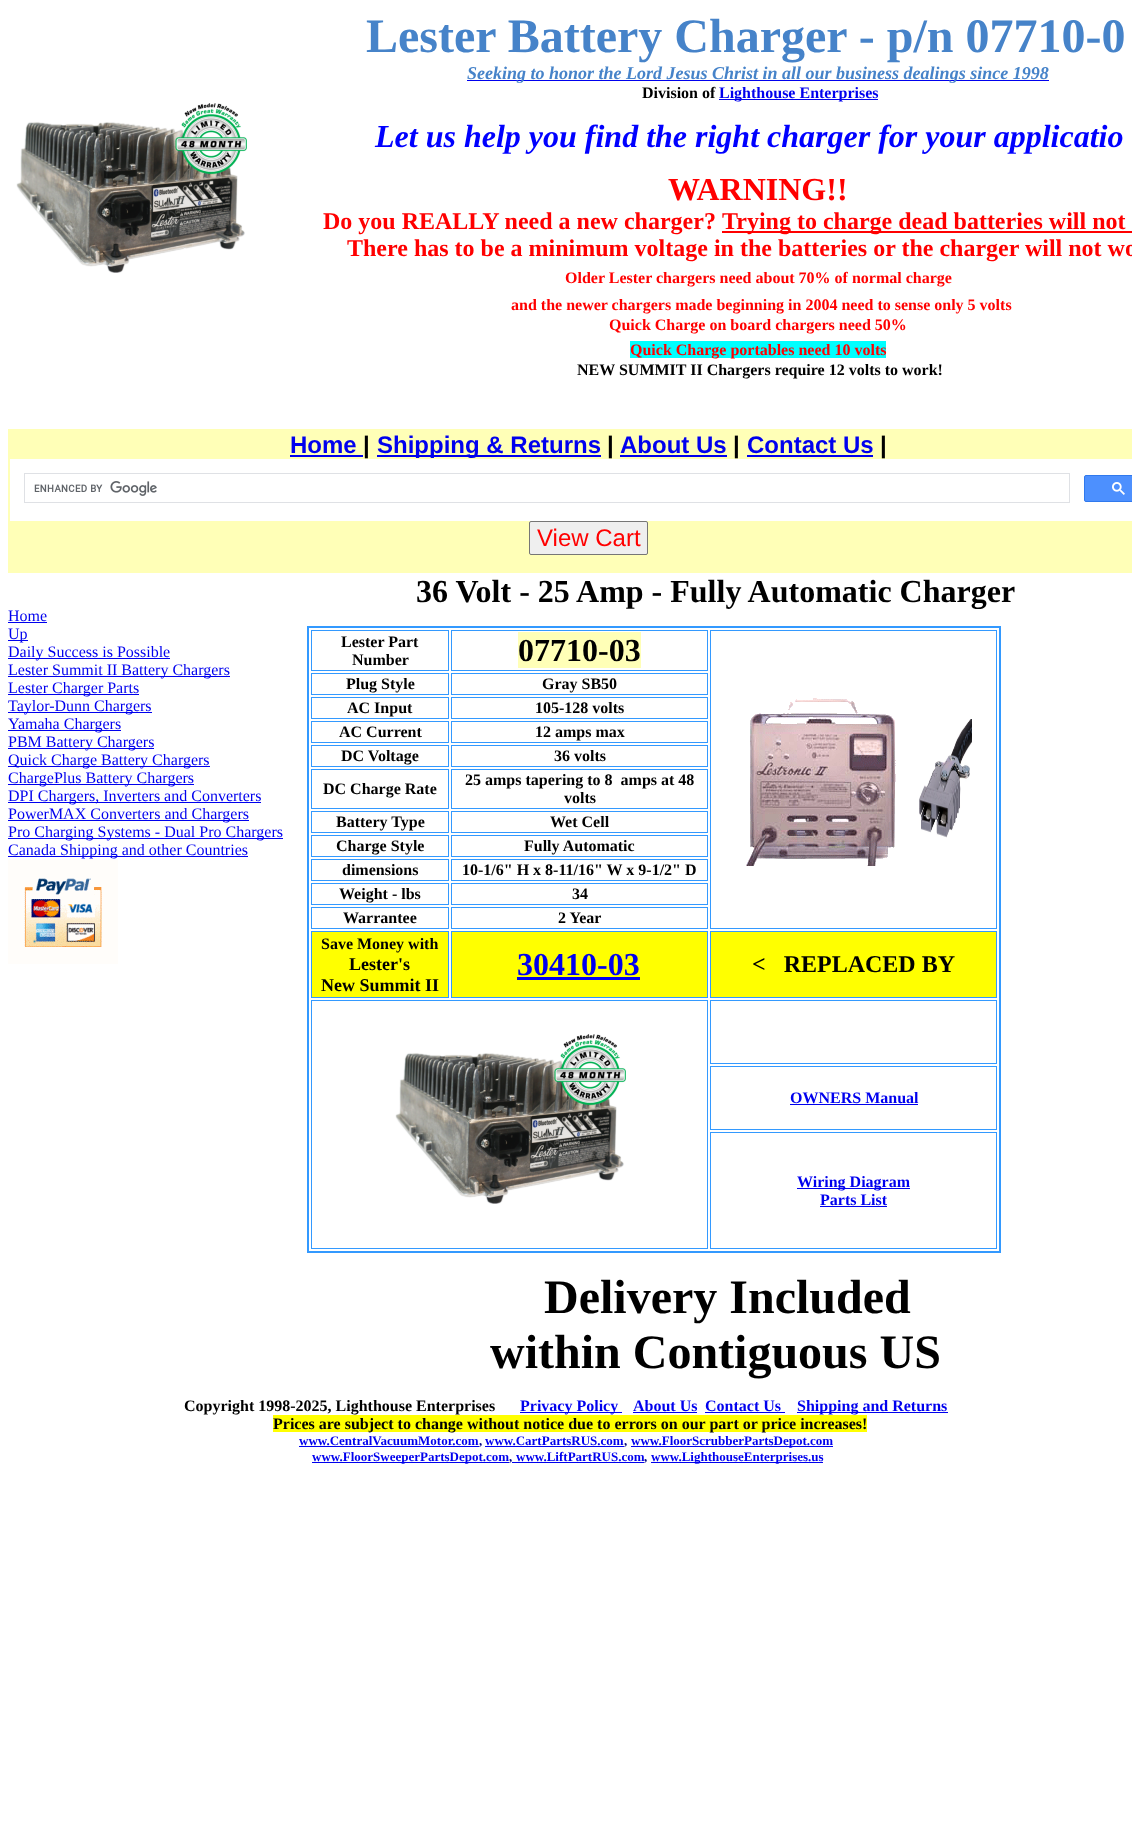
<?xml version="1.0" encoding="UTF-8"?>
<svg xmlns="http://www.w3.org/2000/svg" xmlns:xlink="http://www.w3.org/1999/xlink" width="1132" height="1836">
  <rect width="100%" height="100%" fill="#ffffff" />
  <image x="16" y="103" width="231" height="170" xlink:href="image1.png" />
  <rect x="467" y="80" width="582" height="1" fill="#0000ee" />
  <rect x="719" y="99" width="159" height="1" fill="#0000ee" />
  <rect x="722" y="231" width="410" height="2" fill="#ff0000" />
  <rect x="630" y="341" width="256" height="17" fill="#00ffff" />
  <rect x="8" y="429" width="1124" height="144" fill="#ffffb7" />
  <rect x="290" y="455" width="73" height="2" fill="#0000ee" />
  <rect x="377" y="455" width="224" height="2" fill="#0000ee" />
  <rect x="620" y="455" width="107" height="2" fill="#0000ee" />
  <rect x="747" y="455" width="126" height="2" fill="#0000ee" />
  <rect x="10" y="459" width="1122" height="62" fill="#ffffff" />
  <rect x="24.5" y="473.5" width="1045" height="29" fill="none" stroke="#dfe1e5" />
  <image x="34" y="481" width="123" height="15" xlink:href="image2.png" />
  <rect x="1084.5" y="475.5" width="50" height="26" rx="1.5" fill="#4d90fe" stroke="#3079ed" />
  <image x="1112" y="482" width="13" height="13" xlink:href="image3.png" />
  <rect x="529.5" y="521.5" width="118" height="33" rx="1.5" fill="#efefef" stroke="#767676" />
  <rect x="8" y="622" width="39" height="1" fill="#0000ee" />
  <rect x="8" y="640" width="20" height="1" fill="#0000ee" />
  <rect x="8" y="658" width="162" height="1" fill="#0000ee" />
  <rect x="8" y="676" width="222" height="1" fill="#0000ee" />
  <rect x="8" y="694" width="131" height="1" fill="#0000ee" />
  <rect x="8" y="712" width="144" height="1" fill="#0000ee" />
  <rect x="8" y="730" width="113" height="1" fill="#0000ee" />
  <rect x="8" y="748" width="146" height="1" fill="#0000ee" />
  <rect x="8" y="766" width="202" height="1" fill="#0000ee" />
  <rect x="8" y="784" width="186" height="1" fill="#0000ee" />
  <rect x="8" y="802" width="253" height="1" fill="#0000ee" />
  <rect x="8" y="820" width="241" height="1" fill="#0000ee" />
  <rect x="8" y="838" width="275" height="1" fill="#0000ee" />
  <rect x="8" y="856" width="240" height="1" fill="#0000ee" />
  <image x="8" y="859" width="110" height="105" xlink:href="image4.png" />
  <rect x="308" y="627" width="692" height="625" fill="none" stroke="#3399ff" stroke-width="2" />
  <rect x="311.5" y="630.5" width="137" height="40" fill="none" stroke="#3399ff" />
  <rect x="451.5" y="630.5" width="256" height="40" fill="none" stroke="#3399ff" />
  <rect x="518" y="632" width="123" height="36" fill="#ffffb7" />
  <rect x="710.5" y="630.5" width="286" height="298" fill="none" stroke="#3399ff" />
  <image x="746" y="698" width="150" height="168" xlink:href="image5.png" />
  <image x="919" y="719" width="53" height="119" xlink:href="image6.png" />
  <rect x="311.5" y="673.5" width="137" height="21" fill="none" stroke="#3399ff" />
  <rect x="451.5" y="673.5" width="256" height="21" fill="none" stroke="#3399ff" />
  <rect x="311.5" y="697.5" width="137" height="21" fill="none" stroke="#3399ff" />
  <rect x="451.5" y="697.5" width="256" height="21" fill="none" stroke="#3399ff" />
  <rect x="311.5" y="721.5" width="137" height="21" fill="none" stroke="#3399ff" />
  <rect x="451.5" y="721.5" width="256" height="21" fill="none" stroke="#3399ff" />
  <rect x="311.5" y="745.5" width="137" height="21" fill="none" stroke="#3399ff" />
  <rect x="451.5" y="745.5" width="256" height="21" fill="none" stroke="#3399ff" />
  <rect x="311.5" y="769.5" width="137" height="39" fill="none" stroke="#3399ff" />
  <rect x="451.5" y="769.5" width="256" height="39" fill="none" stroke="#3399ff" />
  <rect x="311.5" y="811.5" width="137" height="21" fill="none" stroke="#3399ff" />
  <rect x="451.5" y="811.5" width="256" height="21" fill="none" stroke="#3399ff" />
  <rect x="311.5" y="835.5" width="137" height="21" fill="none" stroke="#3399ff" />
  <rect x="451.5" y="835.5" width="256" height="21" fill="none" stroke="#3399ff" />
  <rect x="311.5" y="859.5" width="137" height="21" fill="none" stroke="#3399ff" />
  <rect x="451.5" y="859.5" width="256" height="21" fill="none" stroke="#3399ff" />
  <rect x="311.5" y="883.5" width="137" height="21" fill="none" stroke="#3399ff" />
  <rect x="451.5" y="883.5" width="256" height="21" fill="none" stroke="#3399ff" />
  <rect x="311.5" y="907.5" width="137" height="21" fill="none" stroke="#3399ff" />
  <rect x="451.5" y="907.5" width="256" height="21" fill="none" stroke="#3399ff" />
  <rect x="311.5" y="931.5" width="137" height="66" fill="#ffff00" stroke="#3399ff" />
  <rect x="451.5" y="931.5" width="256" height="66" fill="#ffff00" stroke="#3399ff" />
  <rect x="517" y="977" width="123" height="3" fill="#0000ee" />
  <rect x="710.5" y="931.5" width="286" height="66" fill="#ffff00" stroke="#3399ff" />
  <rect x="311.5" y="1000.5" width="396" height="248" fill="none" stroke="#3399ff" />
  <image x="395" y="1034" width="231" height="170" xlink:href="image1.png" />
  <rect x="710.5" y="1000.5" width="286" height="63" fill="none" stroke="#3399ff" />
  <rect x="710.5" y="1066.5" width="286" height="63" fill="none" stroke="#3399ff" />
  <rect x="790" y="1104" width="128" height="1" fill="#0000ee" />
  <rect x="710.5" y="1132.5" width="286" height="116" fill="none" stroke="#3399ff" />
  <rect x="797" y="1188" width="113" height="1" fill="#0000ee" />
  <rect x="820" y="1206" width="67" height="1" fill="#0000ee" />
  <rect x="520" y="1412" width="102" height="1" fill="#0000ee" />
  <rect x="633" y="1412" width="64" height="1" fill="#0000ee" />
  <rect x="705" y="1412" width="80" height="1" fill="#0000ee" />
  <rect x="797" y="1412" width="151" height="1" fill="#0000ee" />
  <rect x="273" y="1415" width="594" height="17" fill="#ffff00" />
  <rect x="299" y="1446" width="180" height="1" fill="#0000ee" />
  <rect x="485" y="1446" width="139" height="1" fill="#0000ee" />
  <rect x="631" y="1446" width="202" height="1" fill="#0000ee" />
  <rect x="312" y="1462" width="197" height="1" fill="#0000ee" />
  <rect x="512" y="1462" width="132" height="1" fill="#0000ee" />
  <rect x="651" y="1462" width="172" height="1" fill="#0000ee" />
  <text x="366" y="52" style="font-family: Liberation Serif; font-size: 48px; font-weight: bold; fill: #4683c9">Lester Battery Charger - p/n 07710-0</text>
  <text x="467" y="79" style="font-family: Liberation Serif; font-size: 18px; font-weight: bold; font-style: italic; fill: #4683c9">Seeking to honor the Lord Jesus Christ in all our business dealings since 1998</text>
  <text x="642" y="98" style="font-family: Liberation Serif; font-size: 16px; font-weight: bold; fill: #000000">Division of</text>
  <text x="719" y="98" style="font-family: Liberation Serif; font-size: 16px; font-weight: bold; fill: #0000ee">Lighthouse Enterprises</text>
  <text x="375" y="147" style="font-family: Liberation Serif; font-size: 32px; font-weight: bold; font-style: italic; fill: #0000ff">Let us help you find the right charger for your applicatio</text>
  <text x="668" y="200" style="font-family: Liberation Serif; font-size: 32px; font-weight: bold; fill: #ff0000">WARNING!!</text>
  <text x="323" y="229" style="font-family: Liberation Serif; font-size: 24px; font-weight: bold; fill: #ff0000">Do you REALLY need a new charger?</text>
  <text x="722" y="229" style="font-family: Liberation Serif; font-size: 24px; font-weight: bold; fill: #ff0000">Trying to charge dead batteries will not</text>
  <text x="347" y="256" style="font-family: Liberation Serif; font-size: 24px; font-weight: bold; fill: #ff0000">There has to be a minimum voltage in the batteries or the charger will not wo</text>
  <text x="565" y="283" style="font-family: Liberation Serif; font-size: 16px; font-weight: bold; fill: #ff0000">Older Lester chargers need about 70% of normal charge</text>
  <text x="511" y="310" style="font-family: Liberation Serif; font-size: 16px; font-weight: bold; fill: #ff0000">and the newer chargers made beginning in 2004 need to sense only 5 volts</text>
  <text x="609" y="330" style="font-family: Liberation Serif; font-size: 16px; font-weight: bold; fill: #ff0000">Quick Charge on board chargers need 50%</text>
  <text x="630" y="355" style="font-family: Liberation Serif; font-size: 16px; font-weight: bold; fill: #ff0000">Quick Charge portables need 10 volts</text>
  <text x="577" y="375" style="font-family: Liberation Serif; font-size: 16px; font-weight: bold; fill: #000000">NEW SUMMIT II Chargers require 12 volts to work!</text>
  <text x="290" y="453" style="font-family: Liberation Sans; font-size: 24px; font-weight: bold; fill: #0000ee">Home</text>
  <text x="363" y="453" style="font-family: Liberation Sans; font-size: 24px; font-weight: bold; fill: #000000">|</text>
  <text x="377" y="453" style="font-family: Liberation Sans; font-size: 24px; font-weight: bold; fill: #0000ee">Shipping &amp; Returns</text>
  <text x="607" y="453" style="font-family: Liberation Sans; font-size: 24px; font-weight: bold; fill: #000000">|</text>
  <text x="620" y="453" style="font-family: Liberation Sans; font-size: 24px; font-weight: bold; fill: #0000ee">About Us</text>
  <text x="733" y="453" style="font-family: Liberation Sans; font-size: 24px; font-weight: bold; fill: #000000">|</text>
  <text x="747" y="453" style="font-family: Liberation Sans; font-size: 24px; font-weight: bold; fill: #0000ee">Contact Us</text>
  <text x="880" y="453" style="font-family: Liberation Sans; font-size: 24px; font-weight: bold; fill: #000000">|</text>
  <text x="537" y="546" style="font-family: Liberation Sans; font-size: 24px; fill: #ff0000">View Cart</text>
  <text x="8" y="621" style="font-family: Liberation Serif; font-size: 16px; fill: #0000ee">Home</text>
  <text x="8" y="639" style="font-family: Liberation Serif; font-size: 16px; fill: #0000ee">Up</text>
  <text x="8" y="657" style="font-family: Liberation Serif; font-size: 16px; fill: #0000ee">Daily Success is Possible</text>
  <text x="8" y="675" style="font-family: Liberation Serif; font-size: 16px; fill: #0000ee">Lester Summit II Battery Chargers</text>
  <text x="8" y="693" style="font-family: Liberation Serif; font-size: 16px; fill: #0000ee">Lester Charger Parts</text>
  <text x="8" y="711" style="font-family: Liberation Serif; font-size: 16px; fill: #0000ee">Taylor-Dunn Chargers</text>
  <text x="8" y="729" style="font-family: Liberation Serif; font-size: 16px; fill: #0000ee">Yamaha Chargers</text>
  <text x="8" y="747" style="font-family: Liberation Serif; font-size: 16px; fill: #0000ee">PBM Battery Chargers</text>
  <text x="8" y="765" style="font-family: Liberation Serif; font-size: 16px; fill: #0000ee">Quick Charge Battery Chargers</text>
  <text x="8" y="783" style="font-family: Liberation Serif; font-size: 16px; fill: #0000ee">ChargePlus Battery Chargers</text>
  <text x="8" y="801" style="font-family: Liberation Serif; font-size: 16px; fill: #0000ee">DPI Chargers, Inverters and Converters</text>
  <text x="8" y="819" style="font-family: Liberation Serif; font-size: 16px; fill: #0000ee">PowerMAX Converters and Chargers</text>
  <text x="8" y="837" style="font-family: Liberation Serif; font-size: 16px; fill: #0000ee">Pro Charging Systems - Dual Pro Chargers</text>
  <text x="8" y="855" style="font-family: Liberation Serif; font-size: 16px; fill: #0000ee">Canada Shipping and other Countries</text>
  <text x="416" y="602" style="font-family: Liberation Serif; font-size: 32px; font-weight: bold; fill: #000000">36 Volt - 25 Amp - Fully Automatic Charger</text>
  <text x="341" y="647" style="font-family: Liberation Serif; font-size: 16px; font-weight: bold; fill: #000000">Lester Part</text>
  <text x="352" y="665" style="font-family: Liberation Serif; font-size: 16px; font-weight: bold; fill: #000000">Number</text>
  <text x="518" y="661" style="font-family: Liberation Serif; font-size: 32px; font-weight: bold; fill: #000000">07710-03</text>
  <text x="346" y="689" style="font-family: Liberation Serif; font-size: 16px; font-weight: bold; fill: #000000">Plug Style</text>
  <text x="542" y="689" style="font-family: Liberation Serif; font-size: 16px; font-weight: bold; fill: #000000">Gray SB50</text>
  <text x="347" y="713" style="font-family: Liberation Serif; font-size: 16px; font-weight: bold; fill: #000000">AC Input</text>
  <text x="535" y="713" style="font-family: Liberation Serif; font-size: 16px; font-weight: bold; fill: #000000">105-128 volts</text>
  <text x="339" y="737" style="font-family: Liberation Serif; font-size: 16px; font-weight: bold; fill: #000000">AC Current</text>
  <text x="535" y="737" style="font-family: Liberation Serif; font-size: 16px; font-weight: bold; fill: #000000">12 amps max</text>
  <text x="341" y="761" style="font-family: Liberation Serif; font-size: 16px; font-weight: bold; fill: #000000">DC Voltage</text>
  <text x="554" y="761" style="font-family: Liberation Serif; font-size: 16px; font-weight: bold; fill: #000000">36 volts</text>
  <text x="323" y="794" style="font-family: Liberation Serif; font-size: 16px; font-weight: bold; fill: #000000">DC Charge Rate</text>
  <text x="465" y="785" style="font-family: Liberation Serif; font-size: 16px; font-weight: bold; fill: #000000" xml:space="preserve">25 amps tapering to 8  amps at 48</text>
  <text x="564" y="803" style="font-family: Liberation Serif; font-size: 16px; font-weight: bold; fill: #000000">volts</text>
  <text x="336" y="827" style="font-family: Liberation Serif; font-size: 16px; font-weight: bold; fill: #000000">Battery Type</text>
  <text x="550" y="827" style="font-family: Liberation Serif; font-size: 16px; font-weight: bold; fill: #000000">Wet Cell</text>
  <text x="336" y="851" style="font-family: Liberation Serif; font-size: 16px; font-weight: bold; fill: #000000">Charge Style</text>
  <text x="524" y="851" style="font-family: Liberation Serif; font-size: 16px; font-weight: bold; fill: #000000">Fully Automatic</text>
  <text x="342" y="875" style="font-family: Liberation Serif; font-size: 16px; font-weight: bold; fill: #000000">dimensions</text>
  <text x="462" y="875" style="font-family: Liberation Serif; font-size: 16px; font-weight: bold; fill: #000000">10-1/6" H x 8-11/16" W x 9-1/2" D</text>
  <text x="339" y="899" style="font-family: Liberation Serif; font-size: 16px; font-weight: bold; fill: #000000">Weight - lbs</text>
  <text x="572" y="899" style="font-family: Liberation Serif; font-size: 16px; font-weight: bold; fill: #000000">34</text>
  <text x="343" y="923" style="font-family: Liberation Serif; font-size: 16px; font-weight: bold; fill: #000000">Warrantee</text>
  <text x="558" y="923" style="font-family: Liberation Serif; font-size: 16px; font-weight: bold; fill: #000000">2 Year</text>
  <text x="321" y="949" style="font-family: Liberation Serif; font-size: 16px; font-weight: bold; fill: #000000">Save Money with</text>
  <text x="349" y="970" style="font-family: Liberation Serif; font-size: 18px; font-weight: bold; fill: #000000">Lester's</text>
  <text x="321" y="991" style="font-family: Liberation Serif; font-size: 18px; font-weight: bold; fill: #000000">New Summit II</text>
  <text x="517" y="975" style="font-family: Liberation Serif; font-size: 32px; font-weight: bold; fill: #0000ee">30410-03</text>
  <text x="752" y="972" style="font-family: Liberation Serif; font-size: 24px; font-weight: bold; fill: #000000" xml:space="preserve">&lt;   REPLACED BY</text>
  <text x="790" y="1103" style="font-family: Liberation Serif; font-size: 16px; font-weight: bold; fill: #0000ee">OWNERS Manual</text>
  <text x="797" y="1187" style="font-family: Liberation Serif; font-size: 16px; font-weight: bold; fill: #0000ee">Wiring Diagram</text>
  <text x="820" y="1205" style="font-family: Liberation Serif; font-size: 16px; font-weight: bold; fill: #0000ee">Parts List</text>
  <text x="544" y="1313" style="font-family: Liberation Serif; font-size: 48px; font-weight: bold; fill: #000000">Delivery Included</text>
  <text x="490" y="1368" style="font-family: Liberation Serif; font-size: 48px; font-weight: bold; fill: #000000">within Contiguous US</text>
  <text x="184" y="1411" style="font-family: Liberation Serif; font-size: 16px; font-weight: bold; fill: #000000">Copyright 1998-2025, Lighthouse Enterprises</text>
  <text x="520" y="1411" style="font-family: Liberation Serif; font-size: 16px; font-weight: bold; fill: #0000ee">Privacy Policy</text>
  <text x="633" y="1411" style="font-family: Liberation Serif; font-size: 16px; font-weight: bold; fill: #0000ee">About Us</text>
  <text x="705" y="1411" style="font-family: Liberation Serif; font-size: 16px; font-weight: bold; fill: #0000ee">Contact Us</text>
  <text x="797" y="1411" style="font-family: Liberation Serif; font-size: 16px; font-weight: bold; fill: #0000ee">Shipping and Returns</text>
  <text x="273" y="1429" style="font-family: Liberation Serif; font-size: 16px; font-weight: bold; fill: #000000">Prices are subject to change without notice due to errors on our part or price increases!</text>
  <text x="299" y="1445" style="font-family: Liberation Serif; font-size: 13px; font-weight: bold; fill: #0000ee">www.CentralVacuumMotor.com</text>
  <text x="479" y="1445" style="font-family: Liberation Serif; font-size: 13px; font-weight: bold; fill: #000080">,</text>
  <text x="485" y="1445" style="font-family: Liberation Serif; font-size: 13px; font-weight: bold; fill: #0000ee">www.CartPartsRUS.com</text>
  <text x="624" y="1445" style="font-family: Liberation Serif; font-size: 13px; font-weight: bold; fill: #000080">,</text>
  <text x="631" y="1445" style="font-family: Liberation Serif; font-size: 13px; font-weight: bold; fill: #0000ee">www.FloorScrubberPartsDepot.com</text>
  <text x="312" y="1461" style="font-family: Liberation Serif; font-size: 13px; font-weight: bold; fill: #0000ee">www.FloorSweeperPartsDepot.com</text>
  <text x="509" y="1461" style="font-family: Liberation Serif; font-size: 13px; font-weight: bold; fill: #000080">,</text>
  <text x="516" y="1461" style="font-family: Liberation Serif; font-size: 13px; font-weight: bold; fill: #0000ee">www.LiftPartRUS.com</text>
  <text x="644" y="1461" style="font-family: Liberation Serif; font-size: 13px; font-weight: bold; fill: #000080">,</text>
  <text x="651" y="1461" style="font-family: Liberation Serif; font-size: 13px; font-weight: bold; fill: #0000ee">www.LighthouseEnterprises.us</text>
</svg>
